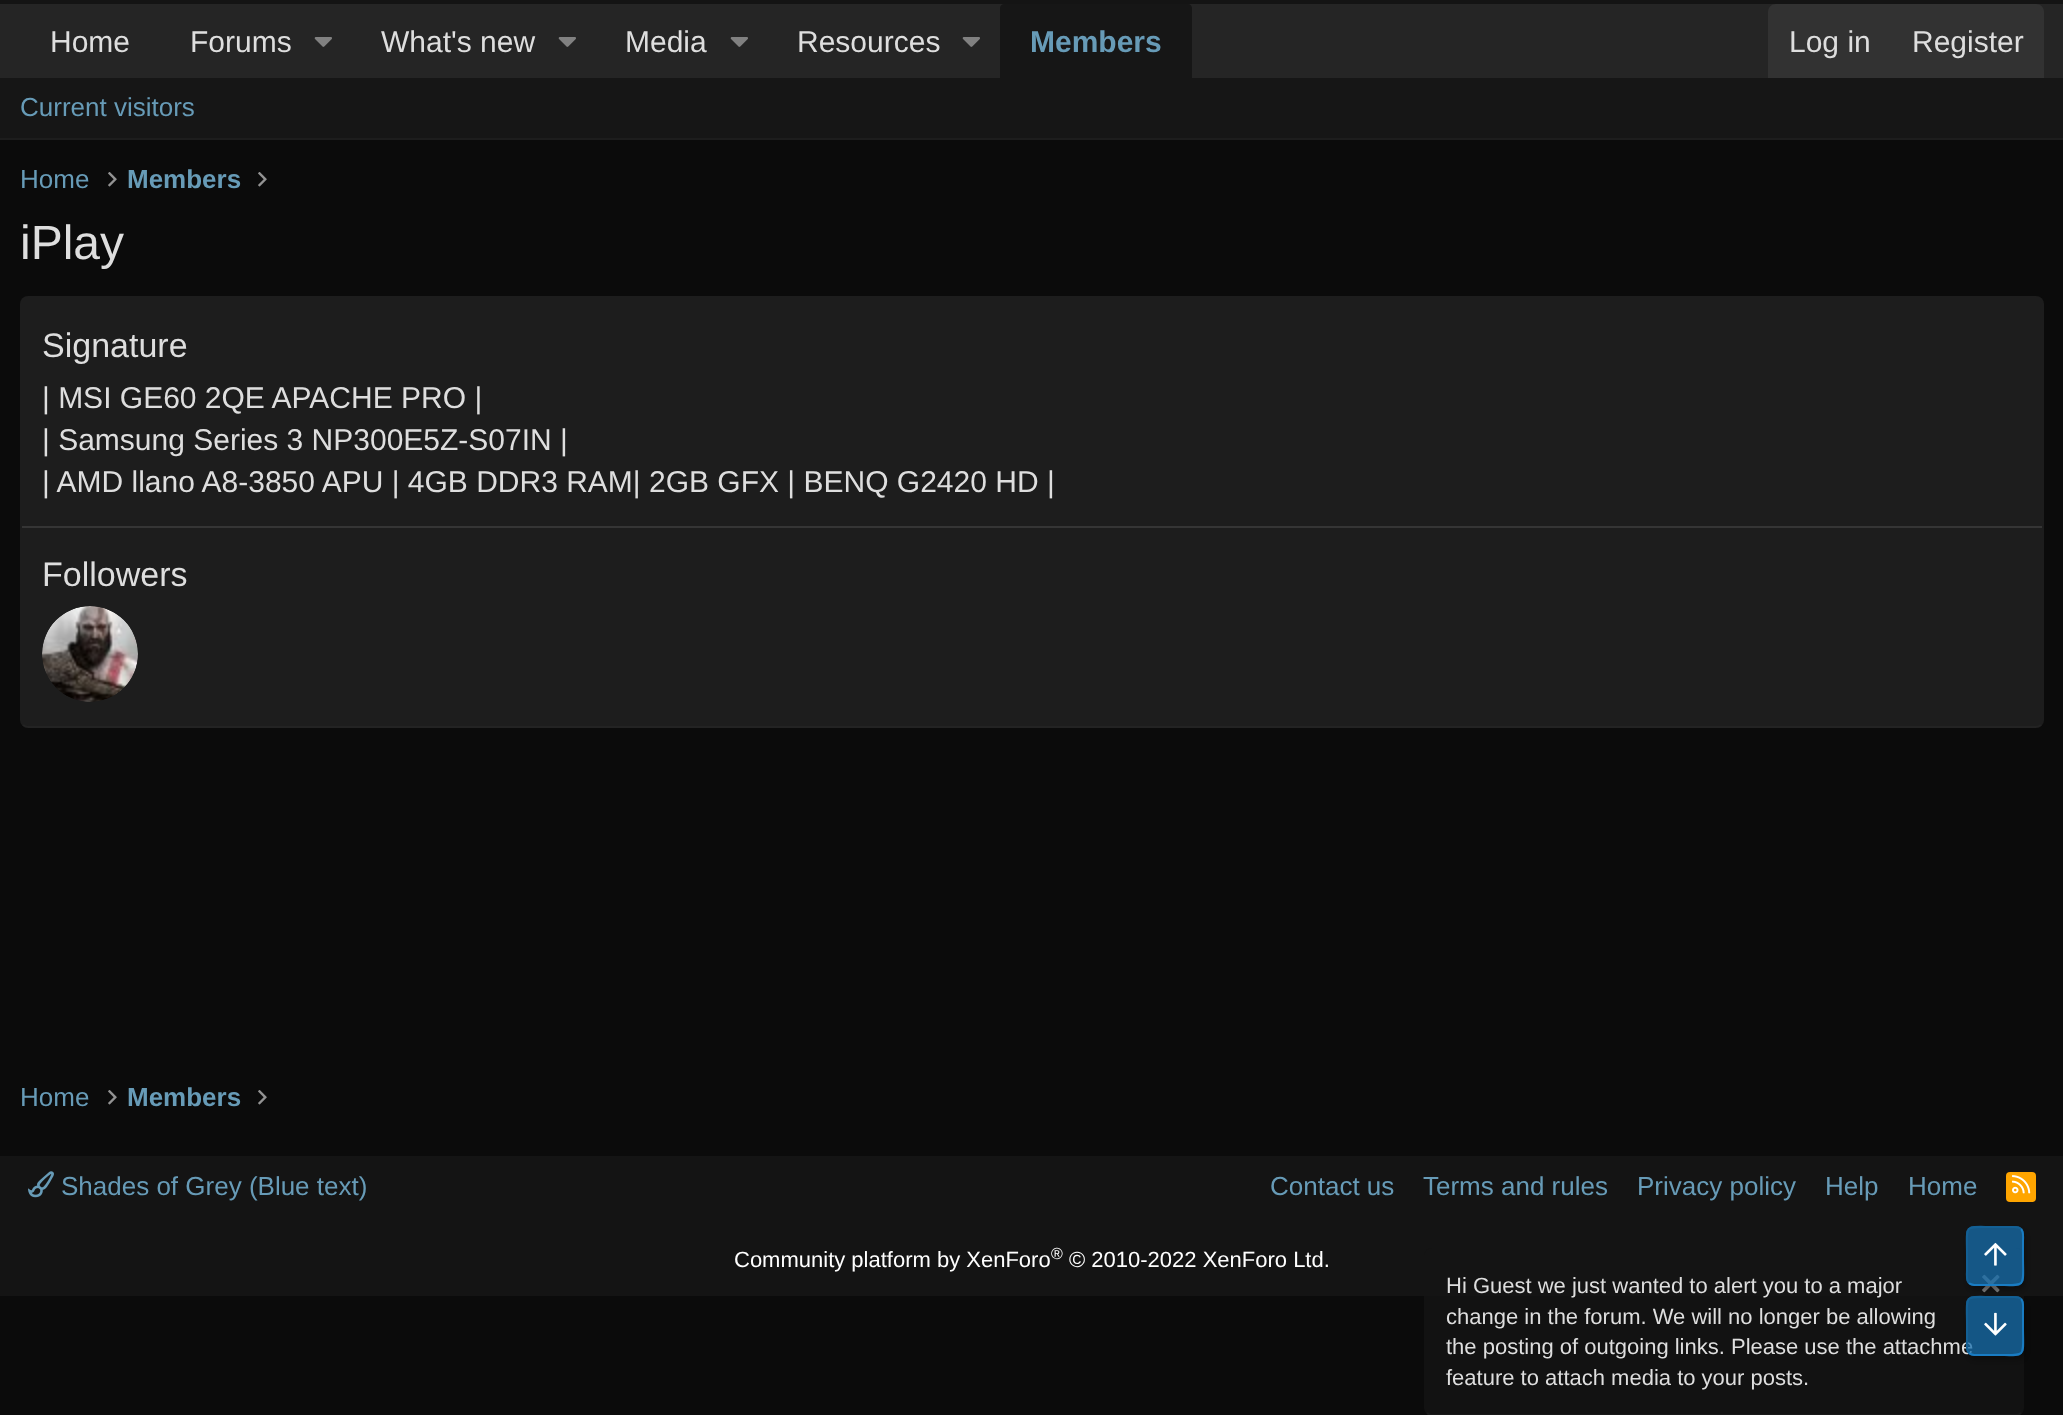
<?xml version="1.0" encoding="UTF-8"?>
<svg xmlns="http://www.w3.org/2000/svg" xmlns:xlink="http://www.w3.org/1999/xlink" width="2063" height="1415">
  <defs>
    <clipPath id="clip1"><path d="M 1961 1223 h 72 v 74 h -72 z m 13 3 h 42 c 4.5 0 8 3.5 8 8 v 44 c 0 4.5 -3.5 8 -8 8 h -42 c -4.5 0 -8 -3.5 -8 -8 v -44 c 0 -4.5 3.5 -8 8 -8 z" clip-rule="evenodd" /></clipPath>
    <clipPath id="clip2"><path d="M 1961 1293 h 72 v 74 h -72 z m 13 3 h 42 c 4.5 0 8 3.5 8 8 v 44 c 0 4.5 -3.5 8 -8 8 h -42 c -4.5 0 -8 -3.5 -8 -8 v -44 c 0 -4.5 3.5 -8 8 -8 z" clip-rule="evenodd" /></clipPath>
  </defs>
  <rect width="100%" height="100%" fill="#0b0b0b" />
  <rect width="2063" height="4" fill="#141414" />
  <rect y="4" width="2063" height="74" fill="#252525" />
  <image x="314" y="37" width="18" height="10" xlink:href="image1.png" />
  <image x="558" y="37" width="18" height="10" xlink:href="image1.png" />
  <image x="730" y="37" width="18" height="10" xlink:href="image1.png" />
  <image x="962" y="37" width="18" height="10" xlink:href="image1.png" />
  <path d="M 1004 4 h 184 c 2 0 4 2 4 4 v 70 h -192 v -70 c 0 -2 2 -4 4 -4 z" fill="#161616" />
  <path d="M 1776 4 h 260 c 4.5 0 8 3.5 8 8 v 66 h -276 v -66 c 0 -4.5 3.5 -8 8 -8 z" fill="#323232" />
  <rect y="78" width="2063" height="60" fill="#161616" />
  <rect y="138" width="2063" height="2" fill="#1d1d1d" />
  <image x="108" y="172" width="9" height="15" xlink:href="image2.png" />
  <image x="258" y="172" width="9" height="15" xlink:href="image2.png" />
  <rect x="20" y="296" width="2024" height="432" rx="8" fill="#1d1d1d" />
  <path d="M 2041 725 c -1.5 1.5 -3 2 -5 2 h -2008 c -2 0 -3.5 -0.5 -5 -2" fill="none" stroke="#5a5a5a" stroke-opacity="0.1" stroke-width="2" />
  <rect x="22" y="526" width="2020" height="2" fill="#353535" />
  <image x="42" y="606" width="96" height="96" xlink:href="image3.png" />
  <image x="108" y="1090" width="9" height="15" xlink:href="image2.png" />
  <image x="258" y="1090" width="9" height="15" xlink:href="image2.png" />
  <rect y="1156" width="2063" height="140" fill="#141414" />
  <image x="28" y="1171" width="26" height="27" xlink:href="image4.png" />
  <rect x="2006" y="1172" width="30" height="30" rx="4" fill="#ffa500" />
  <image x="2012" y="1175" width="19" height="19" xlink:href="image5.png" />
  <rect x="1424" y="1248" width="600" height="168" rx="8" fill="#141414" fill-opacity="0.8" />
  <path d="M 2021 1413 c -1.5 1.5 -3 2 -5 2 h -584 c -2 0 -3.5 -0.5 -5 -2" fill="none" stroke="#5a5a5a" stroke-opacity="0.1" stroke-width="2" />
  <image x="1982" y="1274" width="18" height="19" xlink:href="image6.png" />
  <g clip-path="url(#clip1)">
    <rect x="1968" y="1230" width="58" height="60" rx="8" fill="#000000" fill-opacity="0.25" filter="blur(2px)" />
  </g>
  <rect x="1966" y="1226" width="58" height="60" rx="8" fill="#166eac" fill-opacity="0.75" />
  <path d="M 2021 1229 c 3 3 2 8.5 2 12.5 v 14.5 c 0 33 4.5 29 -28 29 h -14 c -4 0 -9 1 -12 -2" fill="none" stroke="#197cc3" stroke-width="2" />
  <path d="M 1969 1283 c -3 -3 -2 -8.5 -2 -12.5 v -14.5 c 0 -33 -4.5 -29 28 -29 h 14 c 4 0 9 -1 12 2" fill="none" stroke="#136095" stroke-width="2" />
  <image x="1984" y="1242" width="23" height="24" xlink:href="image7.png" />
  <g clip-path="url(#clip2)">
    <rect x="1968" y="1300" width="58" height="60" rx="8" fill="#000000" fill-opacity="0.25" filter="blur(2px)" />
  </g>
  <text x="50" y="52" style="font-family: Liberation Sans; font-size: 30px; fill: #dedede">Home</text>
  <text x="190" y="52" style="font-family: Liberation Sans; font-size: 30px; fill: #dedede">Forums</text>
  <text x="381" y="52" style="font-family: Liberation Sans; font-size: 30px; fill: #dedede">What's new</text>
  <text x="625" y="52" style="font-family: Liberation Sans; font-size: 30px; fill: #dedede">Media</text>
  <text x="797" y="52" style="font-family: Liberation Sans; font-size: 30px; fill: #dedede">Resources</text>
  <text x="1030" y="52" style="font-family: Liberation Sans; font-size: 30px; font-weight: bold; fill: #679bb7">Members</text>
  <text x="1789" y="52" style="font-family: Liberation Sans; font-size: 30px; fill: #dedede">Log in</text>
  <text x="1912" y="52" style="font-family: Liberation Sans; font-size: 30px; fill: #dedede">Register</text>
  <text x="20" y="116" style="font-family: Liberation Sans; font-size: 26px; fill: #679bb7">Current visitors</text>
  <text x="20" y="188" style="font-family: Liberation Sans; font-size: 26px; fill: #679bb7">Home</text>
  <text x="127" y="188" style="font-family: Liberation Sans; font-size: 26px; font-weight: bold; fill: #679bb7">Members</text>
  <text x="20" y="259" style="font-family: Liberation Sans; font-size: 48px; fill: #dedede">iPlay</text>
  <text x="42" y="357" style="font-family: Liberation Sans; font-size: 34px; fill: #dedede">Signature</text>
  <text x="42" y="408" style="font-family: Liberation Sans; font-size: 30px; fill: #dedede">| MSI GE60 2QE APACHE PRO |</text>
  <text x="42" y="450" style="font-family: Liberation Sans; font-size: 30px; fill: #dedede">| Samsung Series 3 NP300E5Z-S07IN |</text>
  <text x="42" y="492" style="font-family: Liberation Sans; font-size: 30px; fill: #dedede">| AMD llano A8-3850 APU | 4GB DDR3 RAM| 2GB GFX | BENQ G2420 HD |</text>
  <text x="42" y="586" style="font-family: Liberation Sans; font-size: 34px; fill: #dedede">Followers</text>
  <text x="20" y="1106" style="font-family: Liberation Sans; font-size: 26px; fill: #679bb7">Home</text>
  <text x="127" y="1106" style="font-family: Liberation Sans; font-size: 26px; font-weight: bold; fill: #679bb7">Members</text>
  <text x="61" y="1195" style="font-family: Liberation Sans; font-size: 26px; fill: #679bb7">Shades of Grey (Blue text)</text>
  <text x="1270" y="1195" style="font-family: Liberation Sans; font-size: 26px; fill: #679bb7">Contact us</text>
  <text x="1423" y="1195" style="font-family: Liberation Sans; font-size: 26px; fill: #679bb7">Terms and rules</text>
  <text x="1637" y="1195" style="font-family: Liberation Sans; font-size: 26px; fill: #679bb7">Privacy policy</text>
  <text x="1825" y="1195" style="font-family: Liberation Sans; font-size: 26px; fill: #679bb7">Help</text>
  <text x="1908" y="1195" style="font-family: Liberation Sans; font-size: 26px; fill: #679bb7">Home</text>
  <text x="734" y="1267" style="font-family: Liberation Sans; font-size: 22px; fill: #ffffff">Community platform by XenForo</text>
  <text x="1051" y="1259" style="font-family: Liberation Sans; font-size: 16px; fill: #ffffff">®</text>
  <text x="1069" y="1267" style="font-family: Liberation Sans; font-size: 22px; fill: #ffffff">© 2010-2022 XenForo Ltd.</text>
  <text x="1446" y="1293" style="font-family: Liberation Sans; font-size: 22px; fill: #dedede">Hi Guest we just wanted to alert you to a major</text>
  <text x="1446" y="1324" style="font-family: Liberation Sans; font-size: 22px; fill: #dedede">change in the forum. We will no longer be allowing</text>
  <text x="1446" y="1354" style="font-family: Liberation Sans; font-size: 22px; fill: #dedede">the posting of outgoing links. Please use the attachme</text>
  <text x="1446" y="1385" style="font-family: Liberation Sans; font-size: 22px; fill: #dedede">feature to attach media to your posts.</text>
  <rect x="1966" y="1296" width="58" height="60" rx="8" fill="#166eac" fill-opacity="0.75" />
  <path d="M 2021 1299 c 3 3 2 8.5 2 12.5 v 14.5 c 0 33 4.5 29 -28 29 h -14 c -4 0 -9 1 -12 -2" fill="none" stroke="#197cc3" stroke-width="2" />
  <path d="M 1969 1353 c -3 -3 -2 -8.5 -2 -12.5 v -14.5 c 0 -33 -4.5 -29 28 -29 h 14 c 4 0 9 -1 12 2" fill="none" stroke="#136095" stroke-width="2" />
  <image x="1984" y="1312" width="23" height="24" xlink:href="image8.png" />
</svg>
